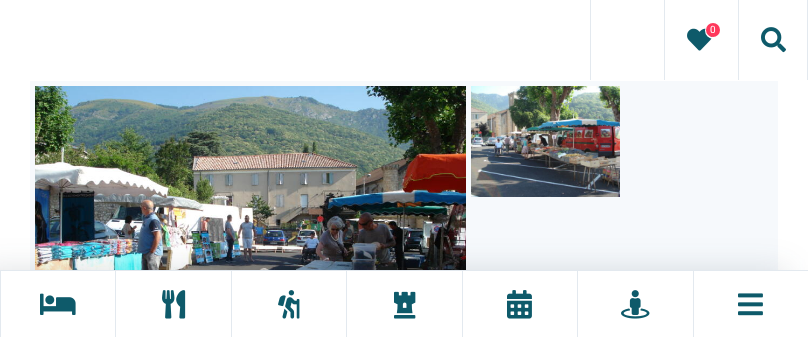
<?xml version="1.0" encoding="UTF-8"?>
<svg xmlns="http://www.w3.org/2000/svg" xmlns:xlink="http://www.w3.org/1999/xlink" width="808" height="337">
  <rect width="100%" height="100%" fill="#ffffff" />
  <rect x="590" width="1" height="80" fill="#e3e9ef" />
  <rect x="664" width="1" height="80" fill="#e3e9ef" />
  <image x="687" y="28" width="25" height="23" xlink:href="image1.png" />
  <circle cx="713.5" cy="30.5" r="7.5" fill="none" stroke="#ffffff" stroke-width="2" />
  <circle cx="713" cy="30" r="7" fill="#ff385c" />
  <rect x="807" width="1" height="80" fill="#e3e9ef" />
  <rect x="738" width="1" height="80" fill="#e3e9ef" />
  <image x="761" y="27" width="25" height="26" xlink:href="image2.png" />
  <rect x="30" y="81" width="748" height="189" fill="#f6f9fc" />
  <image x="35" y="86" width="431" height="184" xlink:href="image3.png" />
  <image x="471" y="86" width="149" height="111" xlink:href="image4.png" />
  <rect x="-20" y="270" width="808" height="67" fill="#2b3445" fill-opacity="0.15" filter="blur(16px)" />
  <rect x="1" y="271" width="807" height="66" fill="#ffffff" />
  <rect y="270" width="808" height="1" fill="#e3e9ef" />
  <rect y="271" width="1" height="66" fill="#e3e9ef" />
  <image x="40" y="293" width="36" height="22" xlink:href="image5.png" />
  <rect x="115" y="271" width="1" height="66" fill="#e3e9ef" />
  <image x="162" y="290" width="24" height="29" xlink:href="image6.png" />
  <rect x="231" y="271" width="1" height="66" fill="#e3e9ef" />
  <image x="278" y="290" width="22" height="29" xlink:href="image7.png" />
  <rect x="346" y="271" width="1" height="66" fill="#e3e9ef" />
  <image x="394" y="291" width="22" height="28" xlink:href="image8.png" />
  <rect x="462" y="271" width="1" height="66" fill="#e3e9ef" />
  <image x="507" y="290" width="25" height="29" xlink:href="image9.png" />
  <rect x="577" y="271" width="1" height="66" fill="#e3e9ef" />
  <image x="621" y="290" width="29" height="29" xlink:href="image10.png" />
  <rect x="693" y="271" width="1" height="66" fill="#e3e9ef" />
  <image x="738" y="293" width="25" height="23" xlink:href="image11.png" />
  <text x="710" y="33" style="font-family: Roboto; font-size: 10px; fill: #ffffff">0</text>
</svg>
